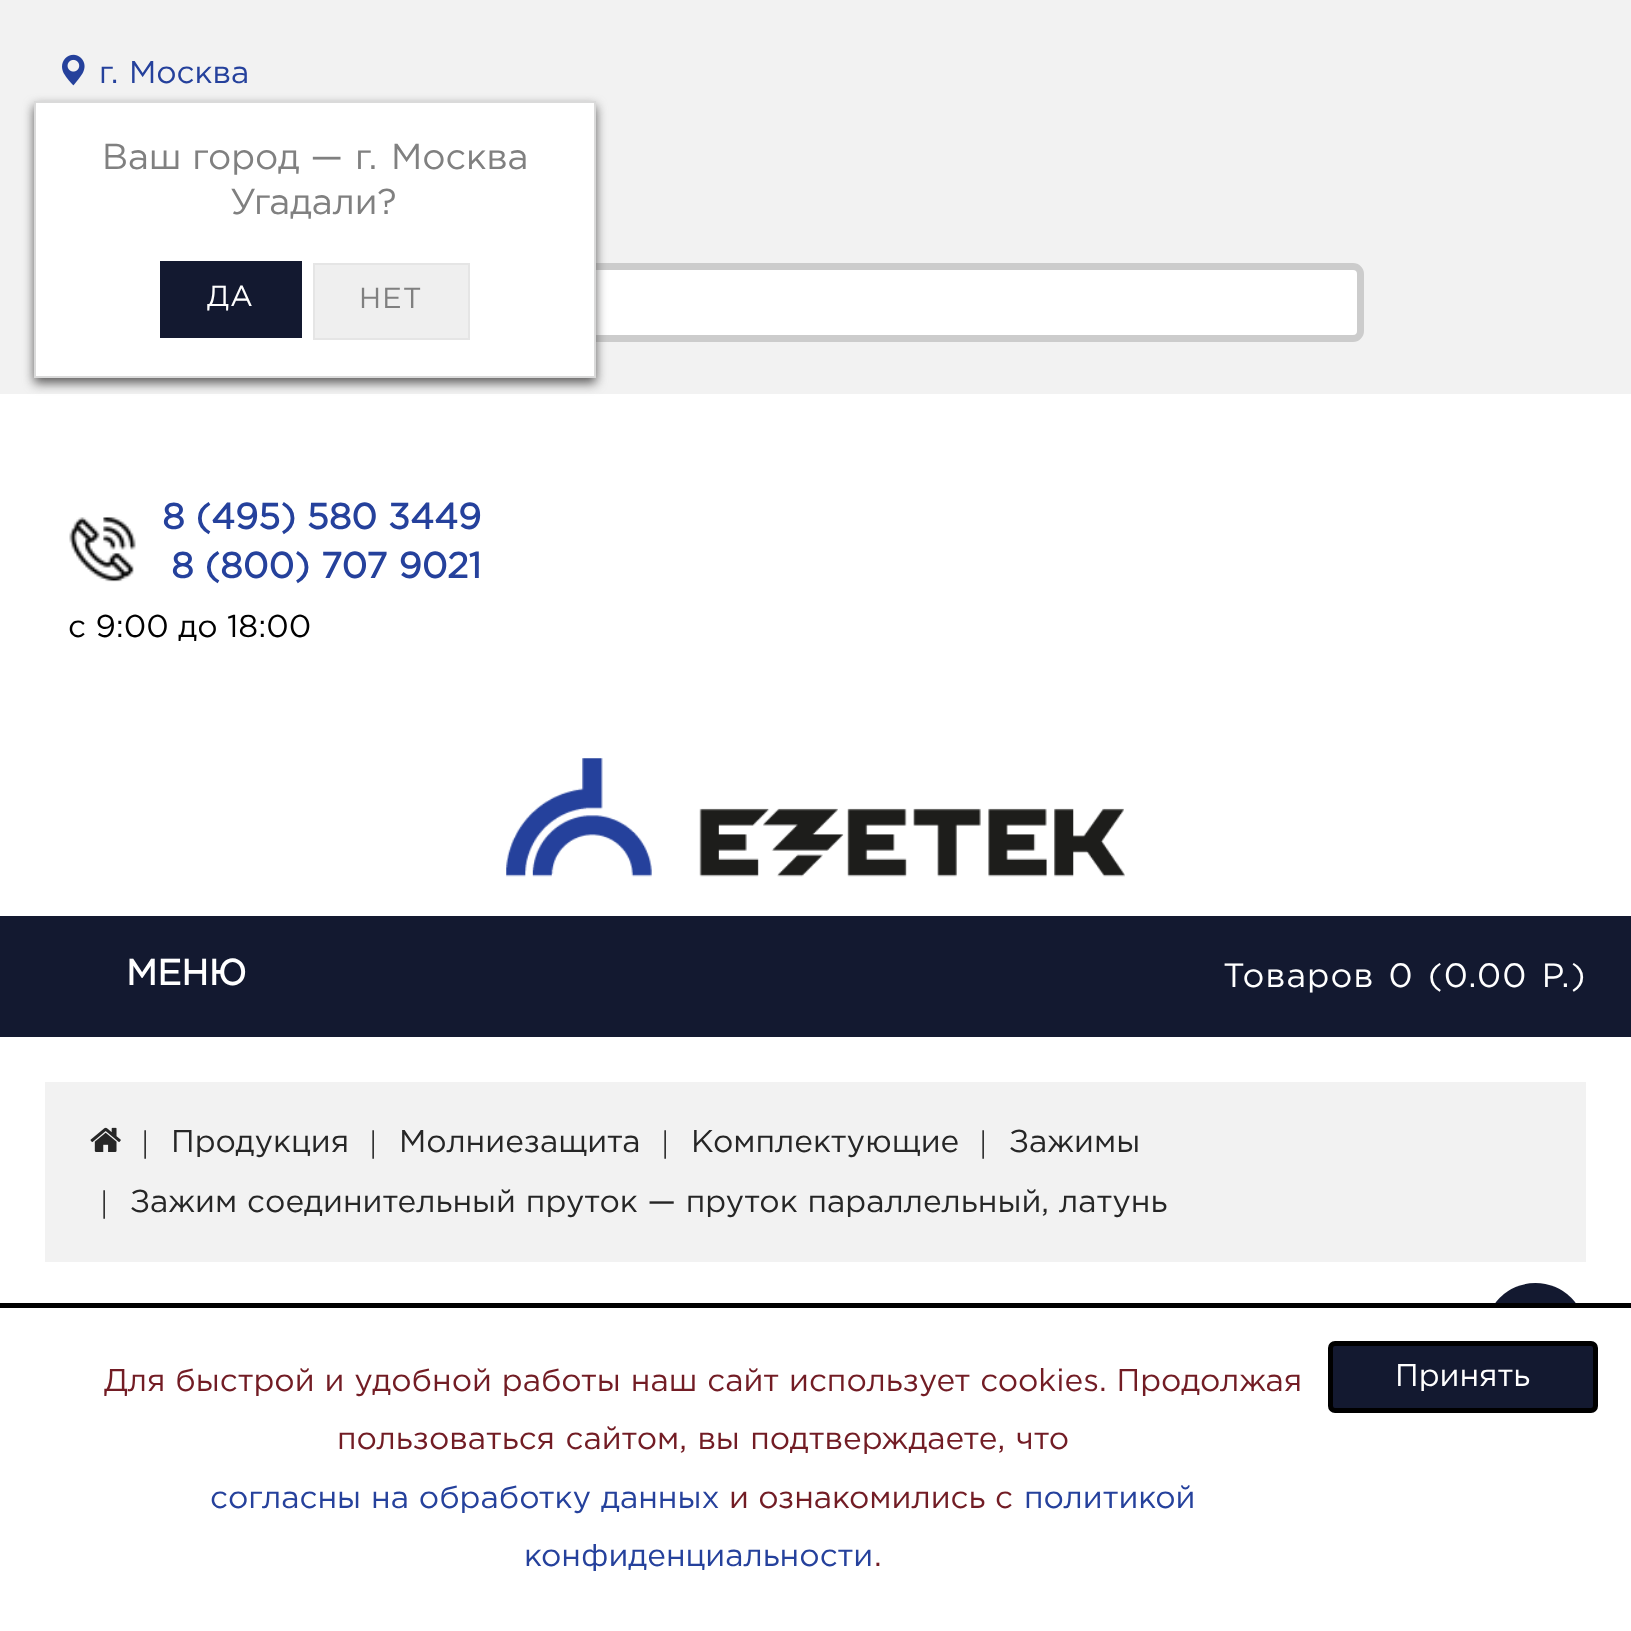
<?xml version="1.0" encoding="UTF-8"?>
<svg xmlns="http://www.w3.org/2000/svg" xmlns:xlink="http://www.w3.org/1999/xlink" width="1631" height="1631">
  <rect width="100%" height="100%" fill="#ffffff" />
  <rect width="1631" height="394" fill="#f2f2f2" />
  <image x="62" y="54" width="23" height="32" xlink:href="image1.png" />
  <rect x="37.5" y="266.5" width="1323" height="72" rx="7.5" fill="#ffffff" stroke="#cccccc" stroke-width="7" />
  <rect x="34" y="106" width="562" height="277" fill="#5b5a5a" filter="blur(5.5px)" />
  <rect x="35" y="102" width="560" height="275" fill="#ffffff" stroke="#dadada" stroke-width="2" />
  <rect x="160" y="261" width="142" height="77" fill="#131930" />
  <rect x="314" y="264" width="155" height="75" fill="#efefef" stroke="#e5e5e5" stroke-width="2" />
  <image x="69" y="517" width="67" height="65" xlink:href="image2.png" />
  <image x="506" y="758" width="619" height="119" xlink:href="image3.png" />
  <rect y="916" width="1631" height="121" fill="#131930" />
  <rect x="45" y="1082" width="1541" height="180" fill="#f2f2f2" />
  <image x="90" y="1127" width="31" height="25" xlink:href="image4.png" />
  <circle cx="1535.5" cy="1333.5" r="50.5" fill="#131930" />
  <rect x="1485" y="1308" width="101" height="76" fill="#ffffff" />
  <rect y="1303" width="1631" height="5" fill="#000000" />
  <rect x="1330.5" y="1343.5" width="265" height="67" rx="4.5" fill="#131930" stroke="#000000" stroke-width="5" />
  <text x="99" y="83" word-spacing="1" style="font-family: Gotham; font-size: 31.5px; fill: #25419c">г. Москва</text>
  <text x="102" y="169" style="font-family: Gotham; font-size: 36px; fill: #808080">Ваш город —</text>
  <text x="355" y="169" word-spacing="3" style="font-family: Gotham; font-size: 36px; fill: #808080">г. Москва</text>
  <text x="230" y="214" style="font-family: Gotham; font-size: 36px; fill: #808080">Угадали?</text>
  <text x="207" y="306" style="font-family: Gotham; font-size: 29px; letter-spacing: 1.1px; fill: #ffffff">ДА</text>
  <text x="359" y="308" style="font-family: Gotham; font-size: 29px; letter-spacing: 1.1px; fill: #808080">НЕТ</text>
  <text x="162" y="529" style="font-family: Gotham; font-size: 36px; font-weight: bold; fill: #25419c">8 (495) 580 3449</text>
  <text x="171" y="578" style="font-family: Gotham; font-size: 36px; font-weight: bold; fill: #25419c">8 (800) 707 9021</text>
  <text x="68" y="637" style="font-family: Gotham; font-size: 31.5px; fill: #000000">с 9:00 до 18:00</text>
  <text x="1223" y="987" word-spacing="3" style="font-family: Gotham; font-size: 33.75px; letter-spacing: 1.1px; fill: #ffffff">Товаров 0 (0.00 Р.)</text>
  <text x="126" y="985" style="font-family: Gotham; font-size: 36px; font-weight: bold; fill: #ffffff">МЕНЮ</text>
  <text x="142" y="1152" style="font-family: Liberation Serif; font-size: 31.5px; fill: #262626">|</text>
  <text x="171" y="1152" style="font-family: Gotham; font-size: 31.5px; fill: #262626">Продукция</text>
  <text x="370" y="1152" style="font-family: Liberation Serif; font-size: 31.5px; fill: #262626">|</text>
  <text x="399" y="1152" style="font-family: Gotham; font-size: 31.5px; fill: #262626">Молниезащита</text>
  <text x="662" y="1152" style="font-family: Liberation Serif; font-size: 31.5px; fill: #262626">|</text>
  <text x="691" y="1152" style="font-family: Gotham; font-size: 31.5px; fill: #262626">Комплектующие</text>
  <text x="980" y="1152" style="font-family: Liberation Serif; font-size: 31.5px; fill: #262626">|</text>
  <text x="1009" y="1152" style="font-family: Gotham; font-size: 31.5px; fill: #262626">Зажимы</text>
  <text x="101" y="1212" style="font-family: Liberation Serif; font-size: 31.5px; fill: #262626">|</text>
  <text x="130" y="1212" word-spacing="0.5" style="font-family: Gotham; font-size: 31.5px; fill: #262626">Зажим соединительный пруток — пруток параллельный, латунь</text>
  <text x="104" y="1391" word-spacing="0.5" style="font-family: Gotham; font-size: 31.5px; fill: #721c24">Для быстрой и удобной работы наш сайт использует cookies. Продолжая</text>
  <text x="337" y="1449" word-spacing="1" style="font-family: Gotham; font-size: 31.5px; fill: #721c24">пользоваться сайтом, вы подтверждаете, что</text>
  <text x="210" y="1508" word-spacing="0.5" style="font-family: Gotham; font-size: 31.5px; fill: #25419c">согласны на обработку данных</text>
  <text x="729" y="1508" style="font-family: Gotham; font-size: 31.5px; fill: #721c24">и ознакомились с</text>
  <text x="1024" y="1508" style="font-family: Gotham; font-size: 31.5px; fill: #25419c">политикой</text>
  <text x="524" y="1566" style="font-family: Gotham; font-size: 31.5px; fill: #25419c">конфиденциальности</text>
  <text x="874" y="1566" style="font-family: Gotham; font-size: 31.5px; fill: #721c24">.</text>
  <text x="1395" y="1386" style="font-family: Gotham; font-size: 31.5px; fill: #ffffff">Принять</text>
</svg>
